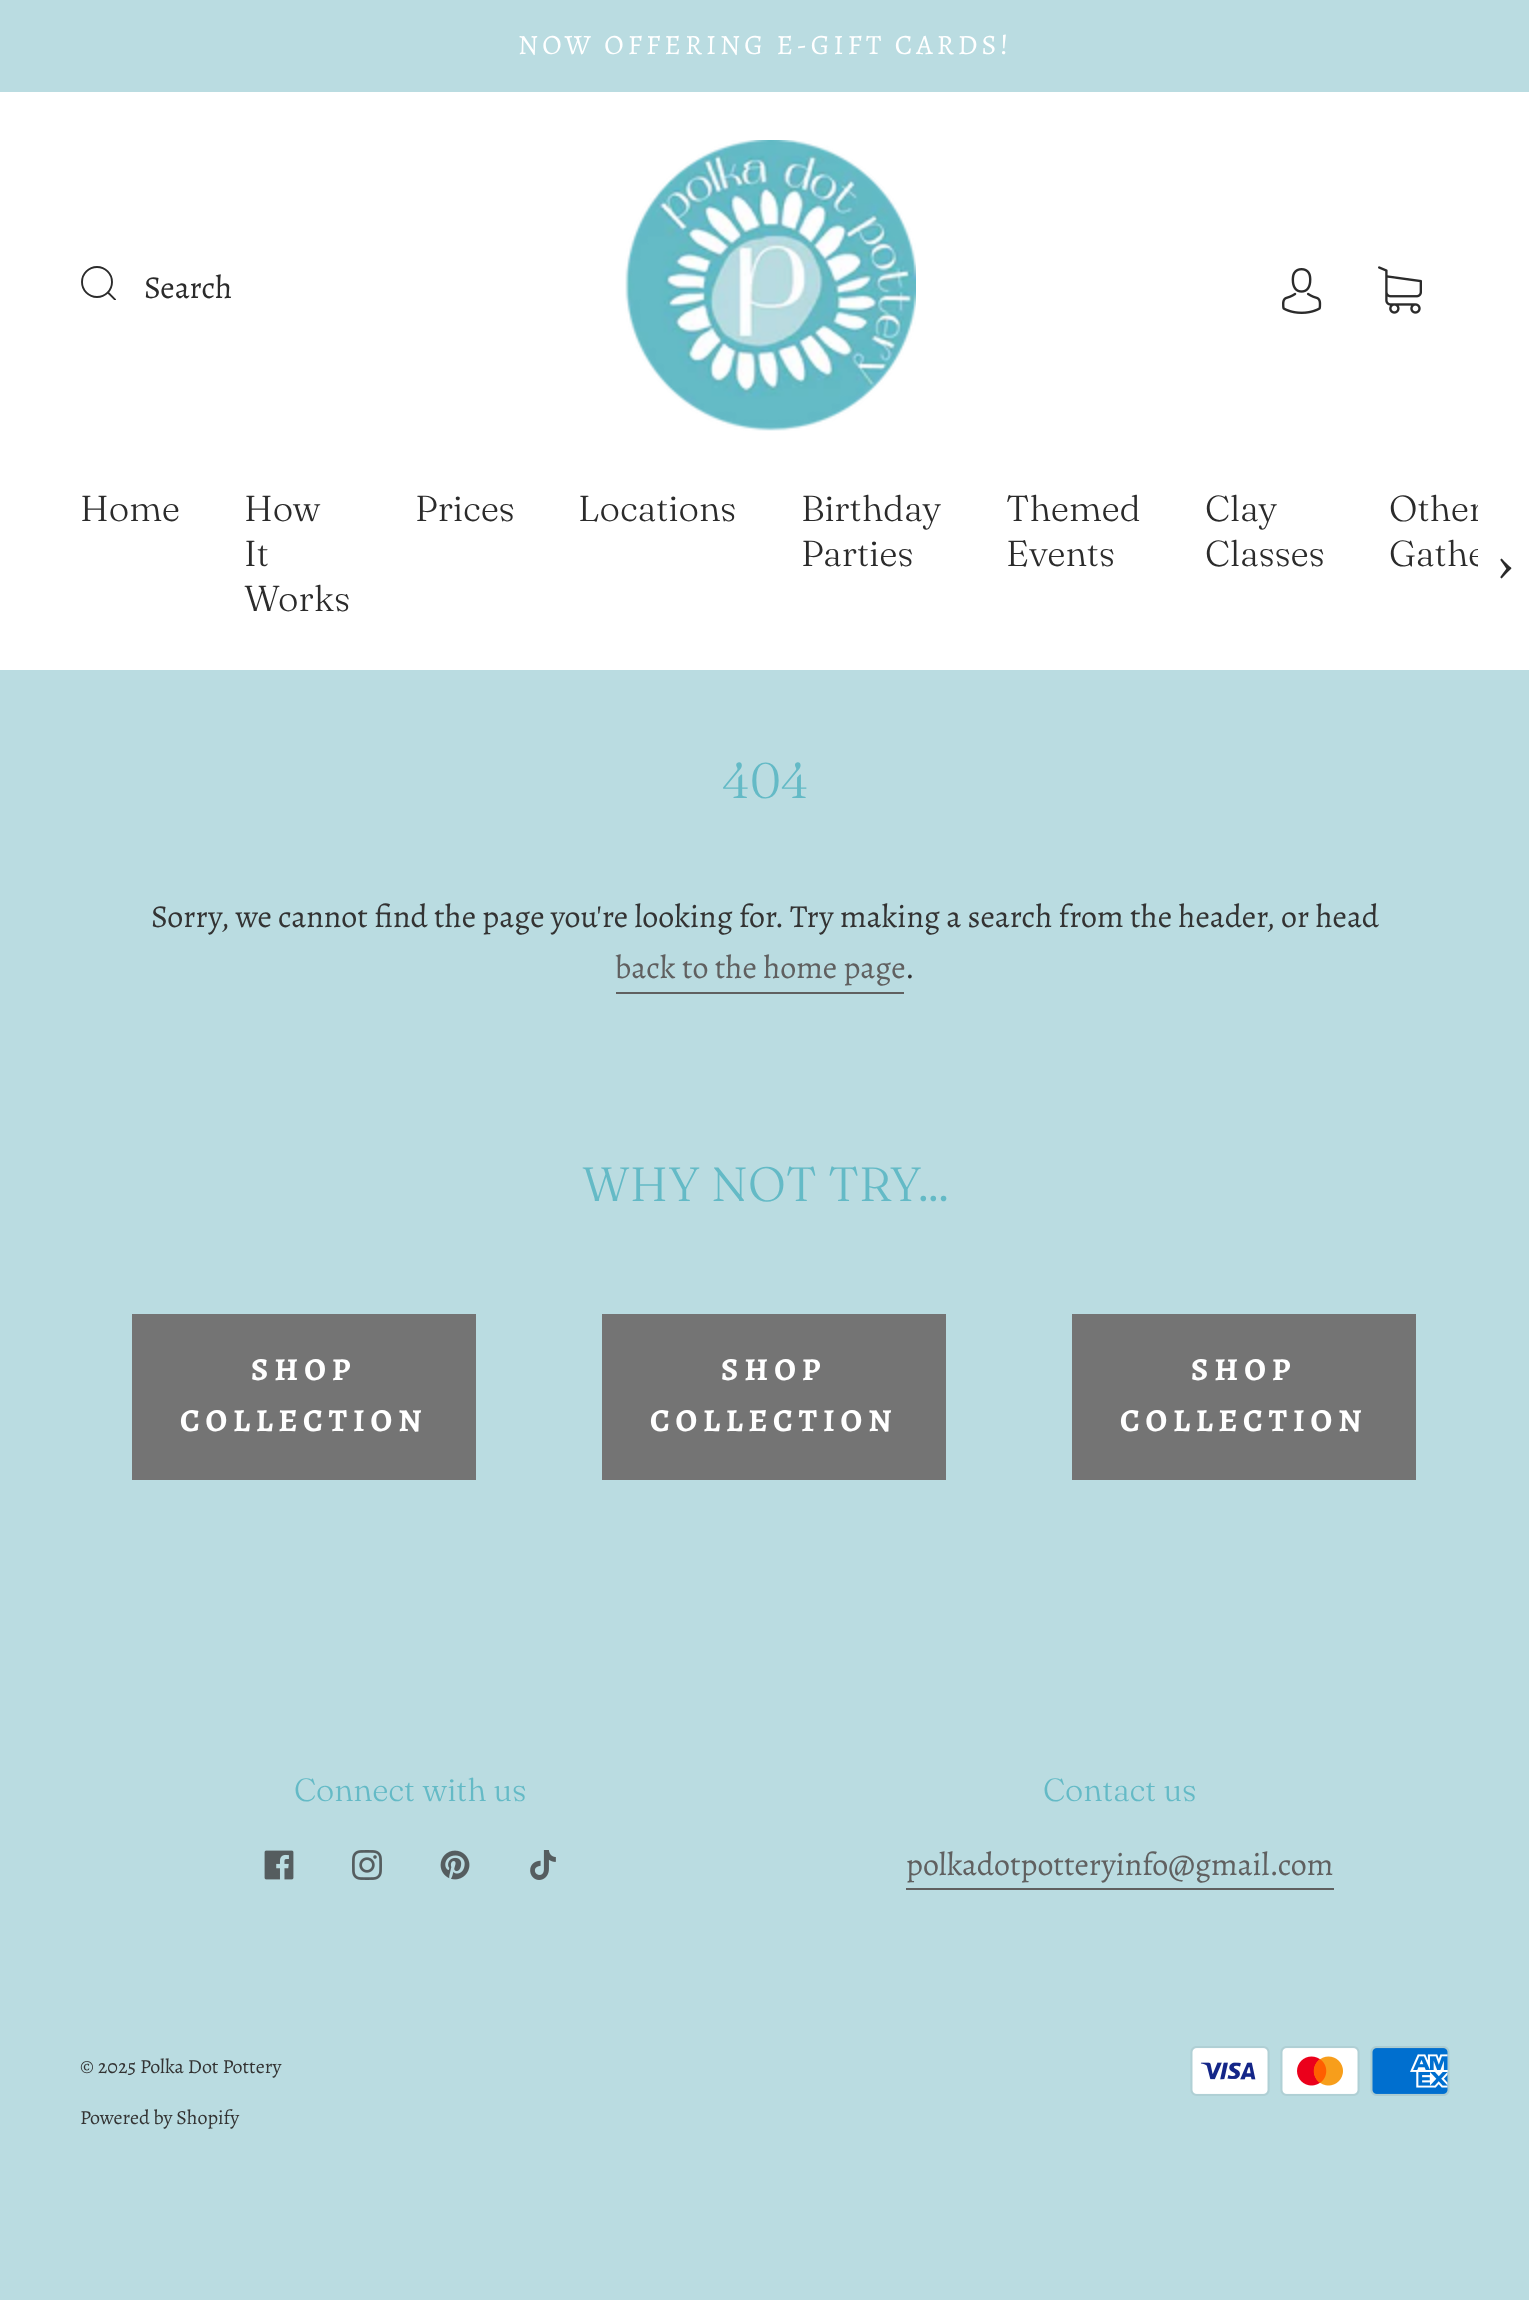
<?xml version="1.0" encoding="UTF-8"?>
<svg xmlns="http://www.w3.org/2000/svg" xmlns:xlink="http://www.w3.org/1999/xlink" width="1529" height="2300">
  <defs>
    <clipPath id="clip1"><rect x="80" y="266" width="36" height="34" /></clipPath>
  </defs>
  <rect width="100%" height="100%" fill="#badce1" />
  <rect y="92" width="1529" height="578" fill="#ffffff" />
  <circle cx="97" cy="282" r="15" fill="none" stroke="#2b2b2b" stroke-width="1.9" />
  <g clip-path="url(#clip1)">
    <path d="M 108 292.5 l 10.5 10.5" fill="none" stroke="#2b2b2b" stroke-width="1.9" />
  </g>
  <image x="625" y="140" width="291" height="291" xlink:href="image1.png" />
  <image x="1282" y="268" width="40" height="46" xlink:href="image2.png" />
  <image x="1378" y="266" width="44" height="48" xlink:href="image3.png" />
  <rect x="616" y="992" width="288" height="2" fill="#606060" />
  <rect x="132" y="1314" width="344" height="166" fill="#747474" />
  <rect x="602" y="1314" width="344" height="166" fill="#747474" />
  <rect x="1072" y="1314" width="344" height="166" fill="#747474" />
  <image x="264" y="1850" width="30" height="30" xlink:href="image4.png" />
  <image x="352" y="1850" width="30" height="30" xlink:href="image5.png" />
  <image x="440" y="1850" width="30" height="30" xlink:href="image6.png" />
  <image x="530" y="1850" width="26" height="30" xlink:href="image7.png" />
  <rect x="906" y="1888" width="428" height="2" fill="#606060" />
  <image x="1190" y="2046" width="80" height="50" xlink:href="image8.png" />
  <image x="1280" y="2046" width="80" height="50" xlink:href="image9.png" />
  <image x="1370" y="2046" width="80" height="50" xlink:href="image10.png" />
  <text x="518" y="54" style="font-family: Alegreya; font-size: 28px; letter-spacing: 4px; fill: #ffffff">NOW OFFERING E-GIFT CARDS!</text>
  <text x="144" y="298" style="font-family: Alegreya; font-size: 32px; fill: #2b2b2b">Search</text>
  <text x="80" y="521" style="font-family: 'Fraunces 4'; font-size: 36px; font-weight: 300; fill: #2b2b2b">Home</text>
  <text x="244" y="521" style="font-family: 'Fraunces 4'; font-size: 36px; font-weight: 300; fill: #2b2b2b">How</text>
  <text x="244" y="566" style="font-family: 'Fraunces 4'; font-size: 36px; font-weight: 300; fill: #2b2b2b">It</text>
  <text x="244" y="611" style="font-family: 'Fraunces 4'; font-size: 36px; font-weight: 300; fill: #2b2b2b">Works</text>
  <text x="415" y="521" style="font-family: 'Fraunces 4'; font-size: 36px; font-weight: 300; fill: #2b2b2b">Prices</text>
  <text x="578" y="521" style="font-family: 'Fraunces 4'; font-size: 36px; font-weight: 300; fill: #2b2b2b">Locations</text>
  <text x="801" y="521" style="font-family: 'Fraunces 4'; font-size: 36px; font-weight: 300; fill: #2b2b2b">Birthday</text>
  <text x="801" y="566" style="font-family: 'Fraunces 4'; font-size: 36px; font-weight: 300; fill: #2b2b2b">Parties</text>
  <text x="1006" y="521" style="font-family: 'Fraunces 4'; font-size: 36px; font-weight: 300; fill: #2b2b2b">Themed</text>
  <text x="1006" y="566" style="font-family: 'Fraunces 4'; font-size: 36px; font-weight: 300; fill: #2b2b2b">Events</text>
  <text x="1205" y="521" style="font-family: 'Fraunces 4'; font-size: 36px; font-weight: 300; fill: #2b2b2b">Clay</text>
  <text x="1205" y="566" style="font-family: 'Fraunces 4'; font-size: 36px; font-weight: 300; fill: #2b2b2b">Classes</text>
  <text x="1389" y="521" style="font-family: 'Fraunces 4'; font-size: 36px; font-weight: 300; fill: #2b2b2b">Other</text>
  <text x="1389" y="566" style="font-family: 'Fraunces 4'; font-size: 36px; font-weight: 300; fill: #2b2b2b">Gathe</text>
  <rect x="1478" y="503" width="7" height="64" fill="#ffffff" />
  <text x="1498" y="581" style="font-family: Alegreya; font-size: 56px; fill: #2b2b2b">›</text>
  <text x="722" y="798" style="font-family: 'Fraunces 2'; font-size: 50px; font-weight: 300; fill: #64bac6">404</text>
  <text x="151" y="927" style="font-family: Alegreya; font-size: 32px; fill: #333333">Sorry, we cannot find the page you're looking for. Try making a search from the header, or head</text>
  <text x="615" y="978" style="font-family: Alegreya; font-size: 32px; fill: #606060">back to the home page</text>
  <text x="905" y="978" style="font-family: Alegreya; font-size: 32px; fill: #333333">.</text>
  <text x="582" y="1201" style="font-family: 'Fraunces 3'; font-size: 48px; font-weight: 300; fill: #64bac6">WHY NOT TRY...</text>
  <text x="251" y="1380" style="font-family: Alegreya; font-size: 32px; font-weight: bold; letter-spacing: 6px; fill: #ffffff">SHOP</text>
  <text x="180" y="1431" style="font-family: Alegreya; font-size: 32px; font-weight: bold; letter-spacing: 6px; fill: #ffffff">COLLECTION</text>
  <text x="721" y="1380" style="font-family: Alegreya; font-size: 32px; font-weight: bold; letter-spacing: 6px; fill: #ffffff">SHOP</text>
  <text x="650" y="1431" style="font-family: Alegreya; font-size: 32px; font-weight: bold; letter-spacing: 6px; fill: #ffffff">COLLECTION</text>
  <text x="1191" y="1380" style="font-family: Alegreya; font-size: 32px; font-weight: bold; letter-spacing: 6px; fill: #ffffff">SHOP</text>
  <text x="1120" y="1431" style="font-family: Alegreya; font-size: 32px; font-weight: bold; letter-spacing: 6px; fill: #ffffff">COLLECTION</text>
  <text x="294" y="1801" style="font-family: Fraunces; font-size: 32px; font-weight: 300; fill: #64bac6">Connect with us</text>
  <text x="1043" y="1801" style="font-family: Fraunces; font-size: 32px; font-weight: 300; fill: #64bac6">Contact us</text>
  <text x="906" y="1875" style="font-family: Alegreya; font-size: 32px; fill: #606060">polkadotpotteryinfo@gmail.com</text>
  <text x="80" y="2073" style="font-family: Alegreya; font-size: 20px; fill: #333333">© 2025 Polka Dot Pottery</text>
  <text x="80" y="2124" style="font-family: Alegreya; font-size: 20px; fill: #333333">Powered by Shopify</text>
</svg>
